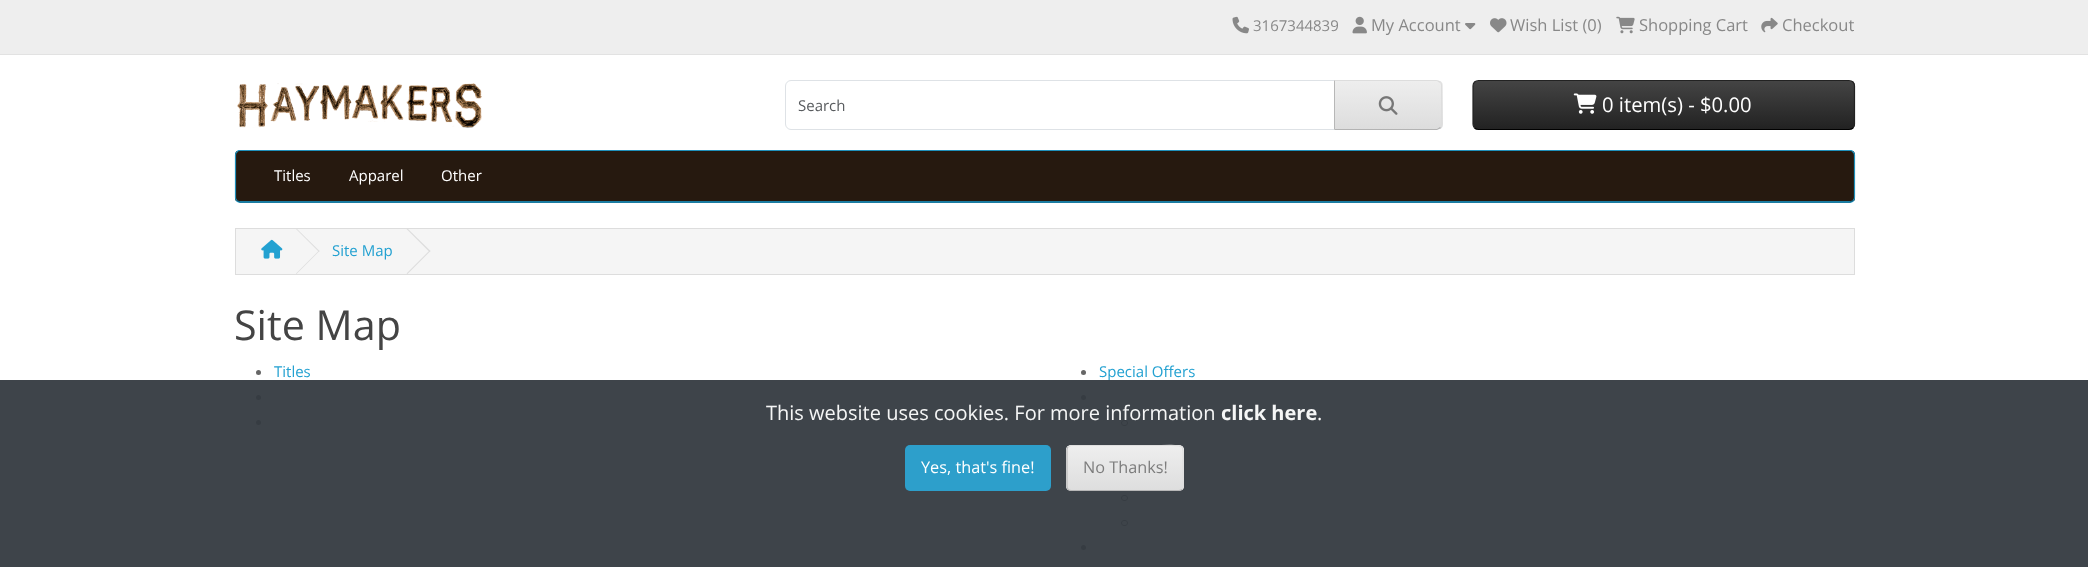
<?xml version="1.0" encoding="UTF-8"?>
<svg xmlns="http://www.w3.org/2000/svg" xmlns:xlink="http://www.w3.org/1999/xlink" width="2088" height="567">
  <defs>
    <clipPath id="clip1"><path d="M 1334 80 h 103 c 3.5 0 6 2.5 6 6 v 38 c 0 3.5 -2.5 6 -6 6 h -103 z" /></clipPath>
    <linearGradient id="g1" gradientUnits="userSpaceOnUse" x1="1388" y1="81" x2="1388" y2="129"><stop offset="0" stop-color="#eeeeee" /><stop offset="1" stop-color="#dddddd" /></linearGradient>
    <clipPath id="clip2"><rect x="1473" y="80" width="382" height="50" rx="6" /></clipPath>
    <linearGradient id="g2" gradientUnits="userSpaceOnUse" x1="1664" y1="81" x2="1664" y2="129"><stop offset="0" stop-color="#444444" /><stop offset="1" stop-color="#222222" /></linearGradient>
    <clipPath id="clip3"><rect x="235" y="150" width="1620" height="53" rx="5" /></clipPath>
    <clipPath id="clip4"><rect x="1066" y="445" width="118" height="46" rx="5" /></clipPath>
    <linearGradient id="g3" gradientUnits="userSpaceOnUse" x1="1125" y1="446" x2="1125" y2="490"><stop offset="0" stop-color="#eeeeee" stop-opacity="0.95" /><stop offset="1" stop-color="#dddddd" stop-opacity="0.95" /></linearGradient>
  </defs>
  <rect width="100%" height="100%" fill="#ffffff" />
  <rect width="2088" height="54" fill="#eeeeee" />
  <rect y="54" width="2088" height="1" fill="#e2e2e2" />
  <image x="1232" y="16" width="17" height="18" xlink:href="image1.png" />
  <image x="1352" y="16" width="15" height="18" xlink:href="image2.png" />
  <image x="1465" y="23" width="11" height="7" xlink:href="image3.png" />
  <image x="1490" y="18" width="17" height="15" xlink:href="image4.png" />
  <image x="1616" y="16" width="19" height="18" xlink:href="image5.png" />
  <image x="1761" y="17" width="17" height="16" xlink:href="image6.png" />
  <image x="237" y="83" width="245" height="45" xlink:href="image7.png" />
  <path d="M 791 80.5 h 543.5 v 49 h -543.5 c -3 0 -5.5 -2.5 -5.5 -5.5 v -38 c 0 -3 2.5 -5.5 5.5 -5.5 z" fill="none" stroke="#dee2e6" />
  <path d="M 1334 80 h 103 c 3.5 0 6 2.5 6 6 v 38 c 0 3.5 -2.5 6 -6 6 h -103 z" fill="#f8f9fa" />
  <g clip-path="url(#clip1)">
    <rect x="1335" y="81" width="108" height="48" fill="url(#g1)" />
  </g>
  <path d="M 1334 80 l 1 1 h 102 l 3 2 l 1 -1 c -1 -1 -3 -2 -5 -2 z" fill="#dddddd" />
  <path d="M 1441 82 c 1 1 1 3 1 4 v 38 c 0 1 0 3 -1 4 l -1 -1 c 1 0 1 -2 1 -3 v -38 c 0 -1 0 -3 -1 -3 z" fill="#dddddd" />
  <path d="M 1334 130 h 103 l 4 -2 l -1 -1 l -3 2 h -102 z" fill="#b3b3b3" />
  <path d="M 1334 80 v 50 l 1 -1 v -48 z" fill="#b7b7b7" />
  <image x="1378" y="96" width="20" height="19" xlink:href="image8.png" />
  <g clip-path="url(#clip2)">
    <rect x="1473" y="81" width="382" height="48" fill="url(#g2)" />
  </g>
  <path d="M 1853 128 c -1 1 -2.5 1.5 -4 1.5 h -370.5 c -1.5 0 -3 -0.5 -4 -1.5" fill="none" stroke="#000000" stroke-width="1.2" />
  <path d="M 1474.5 128 c -1 -1 -1.5 -2.5 -1.5 -4 v -38 c 0 -1.5 0.5 -3 1.5 -4 c 1 -1 2.5 -1.5 4 -1.5 h 370.5 c 1.5 0 3 0.5 4 1.5 c 1 1 1.5 2.5 1.5 4 v 38 c 0 1.5 -0.5 3 -1.5 4" fill="none" stroke="#222222" stroke-width="1.2" />
  <image x="1573" y="93" width="24" height="21" xlink:href="image9.png" />
  <rect x="235" y="150" width="1620" height="53" rx="5" fill="#229ac8" />
  <g clip-path="url(#clip3)">
    <rect x="235" y="151" width="1620" height="50" fill="#26190f" />
  </g>
  <path d="M 1853 200.5 l -3 1.5 h -1610 l -3 -1.5" fill="none" stroke="#145e7a" stroke-width="1.2" />
  <path d="M 237 200.5 c -1 -0.5 -1.5 -2 -1.5 -3 v -42.5 c 0 -1 0.5 -2.5 1.5 -3 c 0.5 -1 2 -1.5 3 -1.5 h 1610 c 1 0 2.5 0.5 3 1.5 c 1 0.5 1.5 2 1.5 3 v 42.5 c 0 1 -0.5 2.5 -1.5 3" fill="none" stroke="#1f90bb" stroke-width="1.2" />
  <rect x="235.5" y="228.5" width="1619" height="46" fill="#f5f5f5" stroke="#dddddd" />
  <image x="261" y="239" width="22" height="20" xlink:href="image10.png" />
  <path d="M 296 229 l 0.5 -0.5 l 23 22.5 l -0.5 1 z" fill="#dddddd" />
  <path d="M 296 273.5 l 23 -23 l 0.5 0.5 l -23 23 z" fill="#dddddd" />
  <path d="M 406.5 229 l 1 -0.5 l 23 22.5 l -1 1 z" fill="#dddddd" />
  <path d="M 406.5 273.5 l 23 -23 l 1 0.5 l -23 23 z" fill="#dddddd" />
  <circle cx="258.5" cy="372.5" r="2.5" fill="#666666" />
  <circle cx="258.5" cy="397.5" r="2.5" fill="#666666" />
  <circle cx="258.5" cy="422.5" r="2.5" fill="#666666" />
  <circle cx="1083.5" cy="372.5" r="2.5" fill="#666666" />
  <circle cx="1083.5" cy="397.5" r="2.5" fill="#666666" />
  <rect x="1121.5" y="420.5" width="6" height="5" rx="2.5" fill="none" stroke="#666666" />
  <rect x="1121.5" y="445.5" width="6" height="5" rx="2.5" fill="none" stroke="#666666" />
  <rect x="1121.5" y="470.5" width="6" height="5" rx="2.5" fill="none" stroke="#666666" />
  <rect x="1121.5" y="495.5" width="6" height="5" rx="2.5" fill="none" stroke="#666666" />
  <rect x="1121.5" y="520.5" width="6" height="5" rx="2.5" fill="none" stroke="#666666" />
  <circle cx="1083.5" cy="547.5" r="2.5" fill="#666666" />
  <text x="1253" y="31" style="font-family: Open Sans; font-size: 15px; fill: #888888">3167344839</text>
  <text x="1371" y="31" style="font-family: Open Sans; font-size: 16.5px; fill: #888888">My Account</text>
  <text x="1510" y="31" style="font-family: Open Sans; font-size: 16.5px; fill: #888888">Wish List (0)</text>
  <text x="1639" y="31" style="font-family: Open Sans; font-size: 16.5px; fill: #888888">Shopping Cart</text>
  <text x="1782" y="31" style="font-family: Open Sans; font-size: 16.5px; fill: #888888">Checkout</text>
  <text x="798" y="111" style="font-family: Open Sans; font-size: 15px; fill: #595c5f">Search</text>
  <text x="1602" y="112" style="font-family: Open Sans; font-size: 20.25px; fill: #ffffff">0 item(s) - $0.00</text>
  <text x="274" y="181" style="font-family: Open Sans; font-size: 15px; fill: #ffffff">Titles</text>
  <text x="349" y="181" style="font-family: Open Sans; font-size: 15px; fill: #ffffff">Apparel</text>
  <text x="441" y="181" style="font-family: Open Sans; font-size: 15px; fill: #ffffff">Other</text>
  <text x="332" y="256" style="font-family: Open Sans; font-size: 15px; fill: #23a1d1">Site Map</text>
  <text x="234" y="340" style="font-family: Open Sans; font-size: 41.25px; fill: #444444">Site Map</text>
  <text x="274" y="377" style="font-family: Open Sans; font-size: 15px; fill: #23a1d1">Titles</text>
  <text x="1099" y="377" style="font-family: Open Sans; font-size: 15px; fill: #23a1d1">Special Offers</text>
  <rect y="380" width="2088" height="187" fill="#343a40" fill-opacity="0.95" />
  <text x="766" y="420" style="font-family: Open Sans; font-size: 20px; fill: #f5f6f6">This website uses cookies. For more information</text>
  <text x="1221" y="420" style="font-family: Open Sans; font-size: 20px; font-weight: bold; fill: #f5f6f6">click here</text>
  <text x="1317" y="420" style="font-family: Open Sans; font-size: 20px; fill: #ffffff">.</text>
  <rect x="905" y="445" width="146" height="46" rx="5" fill="#2d9fcb" />
  <text x="921" y="473" style="font-family: Open Sans; font-size: 16.25px; fill: #ffffff">Yes, that's fine!</text>
  <rect x="1066" y="445" width="118" height="46" rx="5" fill="#f8f9fa" fill-opacity="0.95" />
  <g clip-path="url(#clip4)">
    <rect x="1066" y="446" width="118" height="44" fill="url(#g3)" />
  </g>
  <path d="M 1068 447 l 3 -1.5 h 90 c 26.5 0 22 -3.5 22 22.5 v 12 c 0 2.5 1 7 -1 9.5" fill="none" stroke="#dddddd" stroke-opacity="0.95" stroke-width="1.2" />
  <path d="M 1182 489.5 c -1 0.5 -2 1 -3 1 h -108 c -1 0 -2 -0.5 -3 -1" fill="none" stroke="#b3b3b3" stroke-opacity="0.95" stroke-width="1.2" />
  <path d="M 1068 489.5 c -0.5 -1 -1 -2 -1 -3.5 v -36 c 0 -1 0.5 -2.5 1 -3" fill="none" stroke="#bbbbbb" stroke-width="1.2" />
  <text x="1083" y="473" style="font-family: Open Sans; font-size: 16.25px; fill: #7d7d7d">No Thanks!</text>
</svg>
